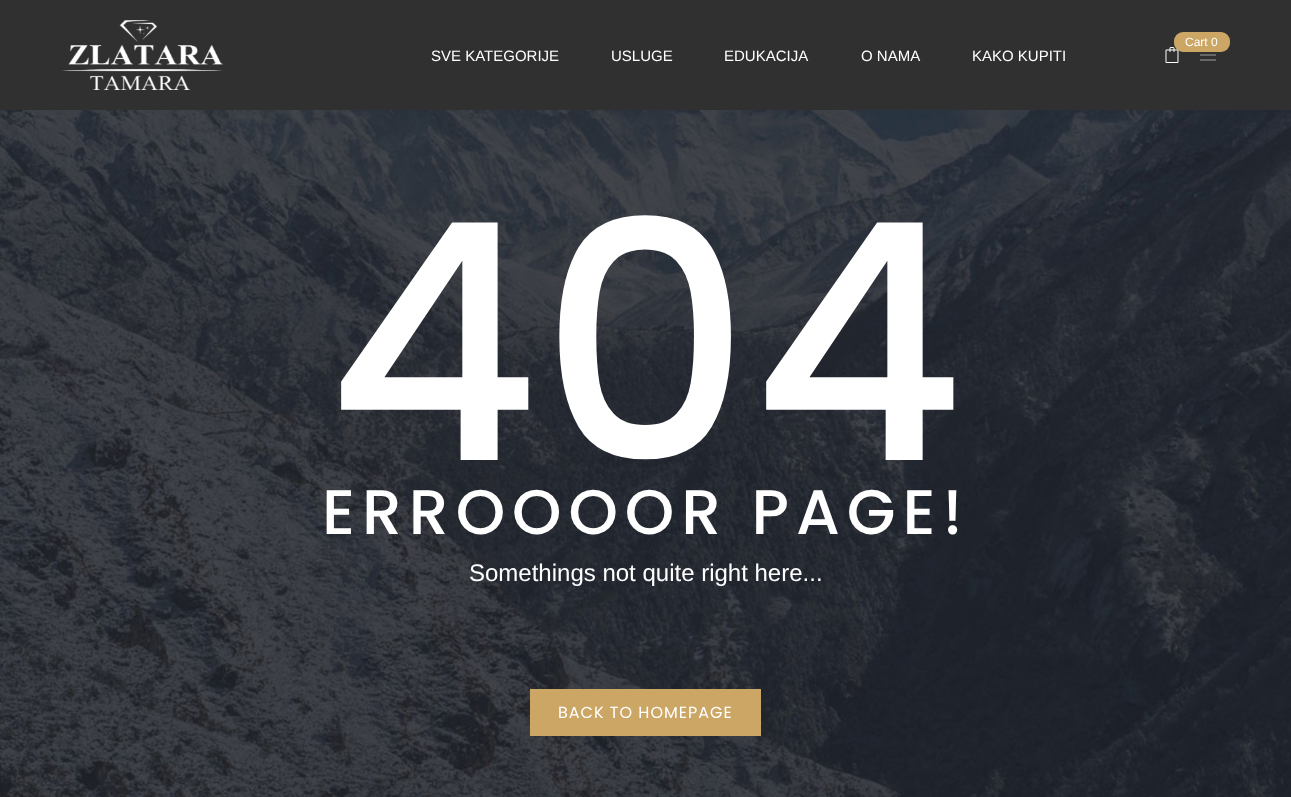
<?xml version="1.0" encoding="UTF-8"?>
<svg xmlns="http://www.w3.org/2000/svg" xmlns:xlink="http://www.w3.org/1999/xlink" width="1291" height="797">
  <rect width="100%" height="100%" fill="#ffffff" />
  <rect width="1291" height="110" fill="#303030" />
  <image x="61" y="20" width="162" height="70" xlink:href="image1.png" />
  <image x="1165" y="47" width="14" height="16" xlink:href="image2.png" />
  <rect x="1174" y="32" width="56" height="20" rx="9" fill="#cca665" />
  <rect x="1200" y="54" width="16" height="2" fill="#666666" />
  <rect x="1200" y="59" width="16" height="2" fill="#666666" />
  <image x="0" y="110" width="1291" height="687" xlink:href="image3.png" />
  <rect x="530" y="689" width="231" height="47" fill="#cca665" />
  <text x="1185" y="46" style="font-family: Liberation Sans; font-size: 12px; fill: #ffffff">Cart 0</text>
  <text x="431" y="61" style="font-family: Liberation Sans; font-size: 15px; fill: #ffffff">SVE KATEGORIJE</text>
  <text x="611" y="61" style="font-family: Liberation Sans; font-size: 15px; fill: #ffffff">USLUGE</text>
  <text x="724" y="61" style="font-family: Liberation Sans; font-size: 15px; fill: #ffffff">EDUKACIJA</text>
  <text x="861" y="61" style="font-family: Liberation Sans; font-size: 15px; fill: #ffffff">O NAMA</text>
  <text x="972" y="61" style="font-family: Liberation Sans; font-size: 15px; fill: #ffffff">KAKO KUPITI</text>
  <text x="326" y="460" style="font-family: Poppins; font-size: 330px; font-weight: 500; fill: #ffffff">404</text>
  <text x="322" y="534" style="font-family: Poppins; font-size: 63px; font-weight: 500; letter-spacing: 7px; fill: #ffffff">ERROOOOR PAGE!</text>
  <text x="469" y="581" style="font-family: Liberation Sans; font-size: 24px; fill: #ffffff">Somethings not quite right here...</text>
  <text x="558" y="718" style="font-family: Poppins; font-size: 16px; letter-spacing: 1px; fill: #ffffff">BACK TO HOMEPAGE</text>
</svg>
